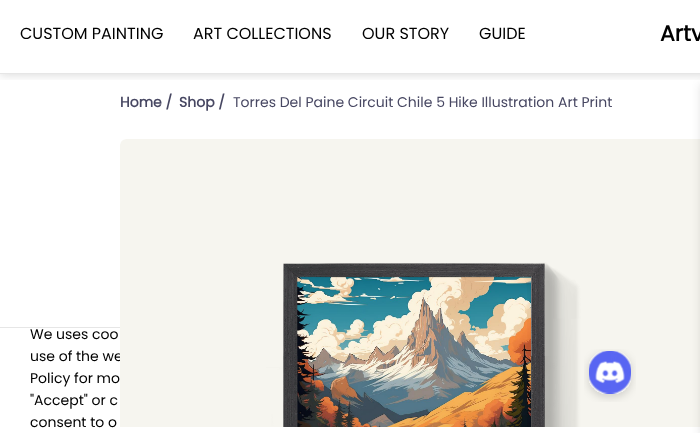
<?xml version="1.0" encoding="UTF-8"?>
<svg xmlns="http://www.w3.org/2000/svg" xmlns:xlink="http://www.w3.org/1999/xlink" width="700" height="433">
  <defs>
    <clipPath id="clip1"><rect x="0" y="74" width="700" height="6" /></clipPath>
  </defs>
  <rect width="100%" height="100%" fill="#ffffff" />
  <g clip-path="url(#clip1)">
    <rect y="-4" width="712" height="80" fill="#000000" fill-opacity="0.12" filter="blur(4px)" />
  </g>
  <rect y="73" width="700" height="1" fill="#e6e6e6" />
  <rect y="327" width="532" height="1" fill="#e6e6e6" />
  <image x="297" y="276" width="234" height="151" xlink:href="image2.png" />
  <text x="20" y="39" style="font-family: Poppins; font-size: 16px; fill: #000000">CUSTOM PAINTING</text>
  <text x="193" y="39" style="font-family: Poppins; font-size: 16px; fill: #000000">ART COLLECTIONS</text>
  <text x="362" y="39" style="font-family: Poppins; font-size: 16px; fill: #000000">OUR STORY</text>
  <text x="479" y="39" style="font-family: Poppins; font-size: 16px; fill: #000000">GUIDE</text>
  <text x="660" y="41" style="font-family: Poppins; font-size: 22px; font-weight: bold; fill: #000000">Artv</text>
  <text x="120" y="107" style="font-family: Poppins; font-size: 14px; font-weight: bold; fill: #474762">Home /</text>
  <text x="179" y="107" style="font-family: Poppins; font-size: 14px; font-weight: bold; fill: #474762">Shop /</text>
  <text x="233" y="107" style="font-family: Poppins; font-size: 14px; fill: #474762">Torres Del Paine Circuit Chile 5 Hike Illustration Art Print</text>
  <text x="30" y="339" style="font-family: Poppins; font-size: 14px; fill: #000000">We uses coo</text>
  <text x="30" y="361" style="font-family: Poppins; font-size: 14px; fill: #000000">use of the we</text>
  <image x="120" y="139" width="580" height="288" xlink:href="image1.png" />
  <rect x="700" y="84" width="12" height="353" fill="#000000" fill-opacity="0.1" filter="blur(4px)" />
  <image x="584" y="349" width="52" height="53" xlink:href="image3.png" />
  <text x="30" y="383" style="font-family: Poppins; font-size: 14px; fill: #000000">Policy for mo</text>
  <text x="30" y="405" style="font-family: Poppins; font-size: 14px; fill: #000000">"Accept" or c</text>
  <text x="30" y="427" style="font-family: Poppins; font-size: 14px; fill: #000000">consent to o</text>
</svg>
